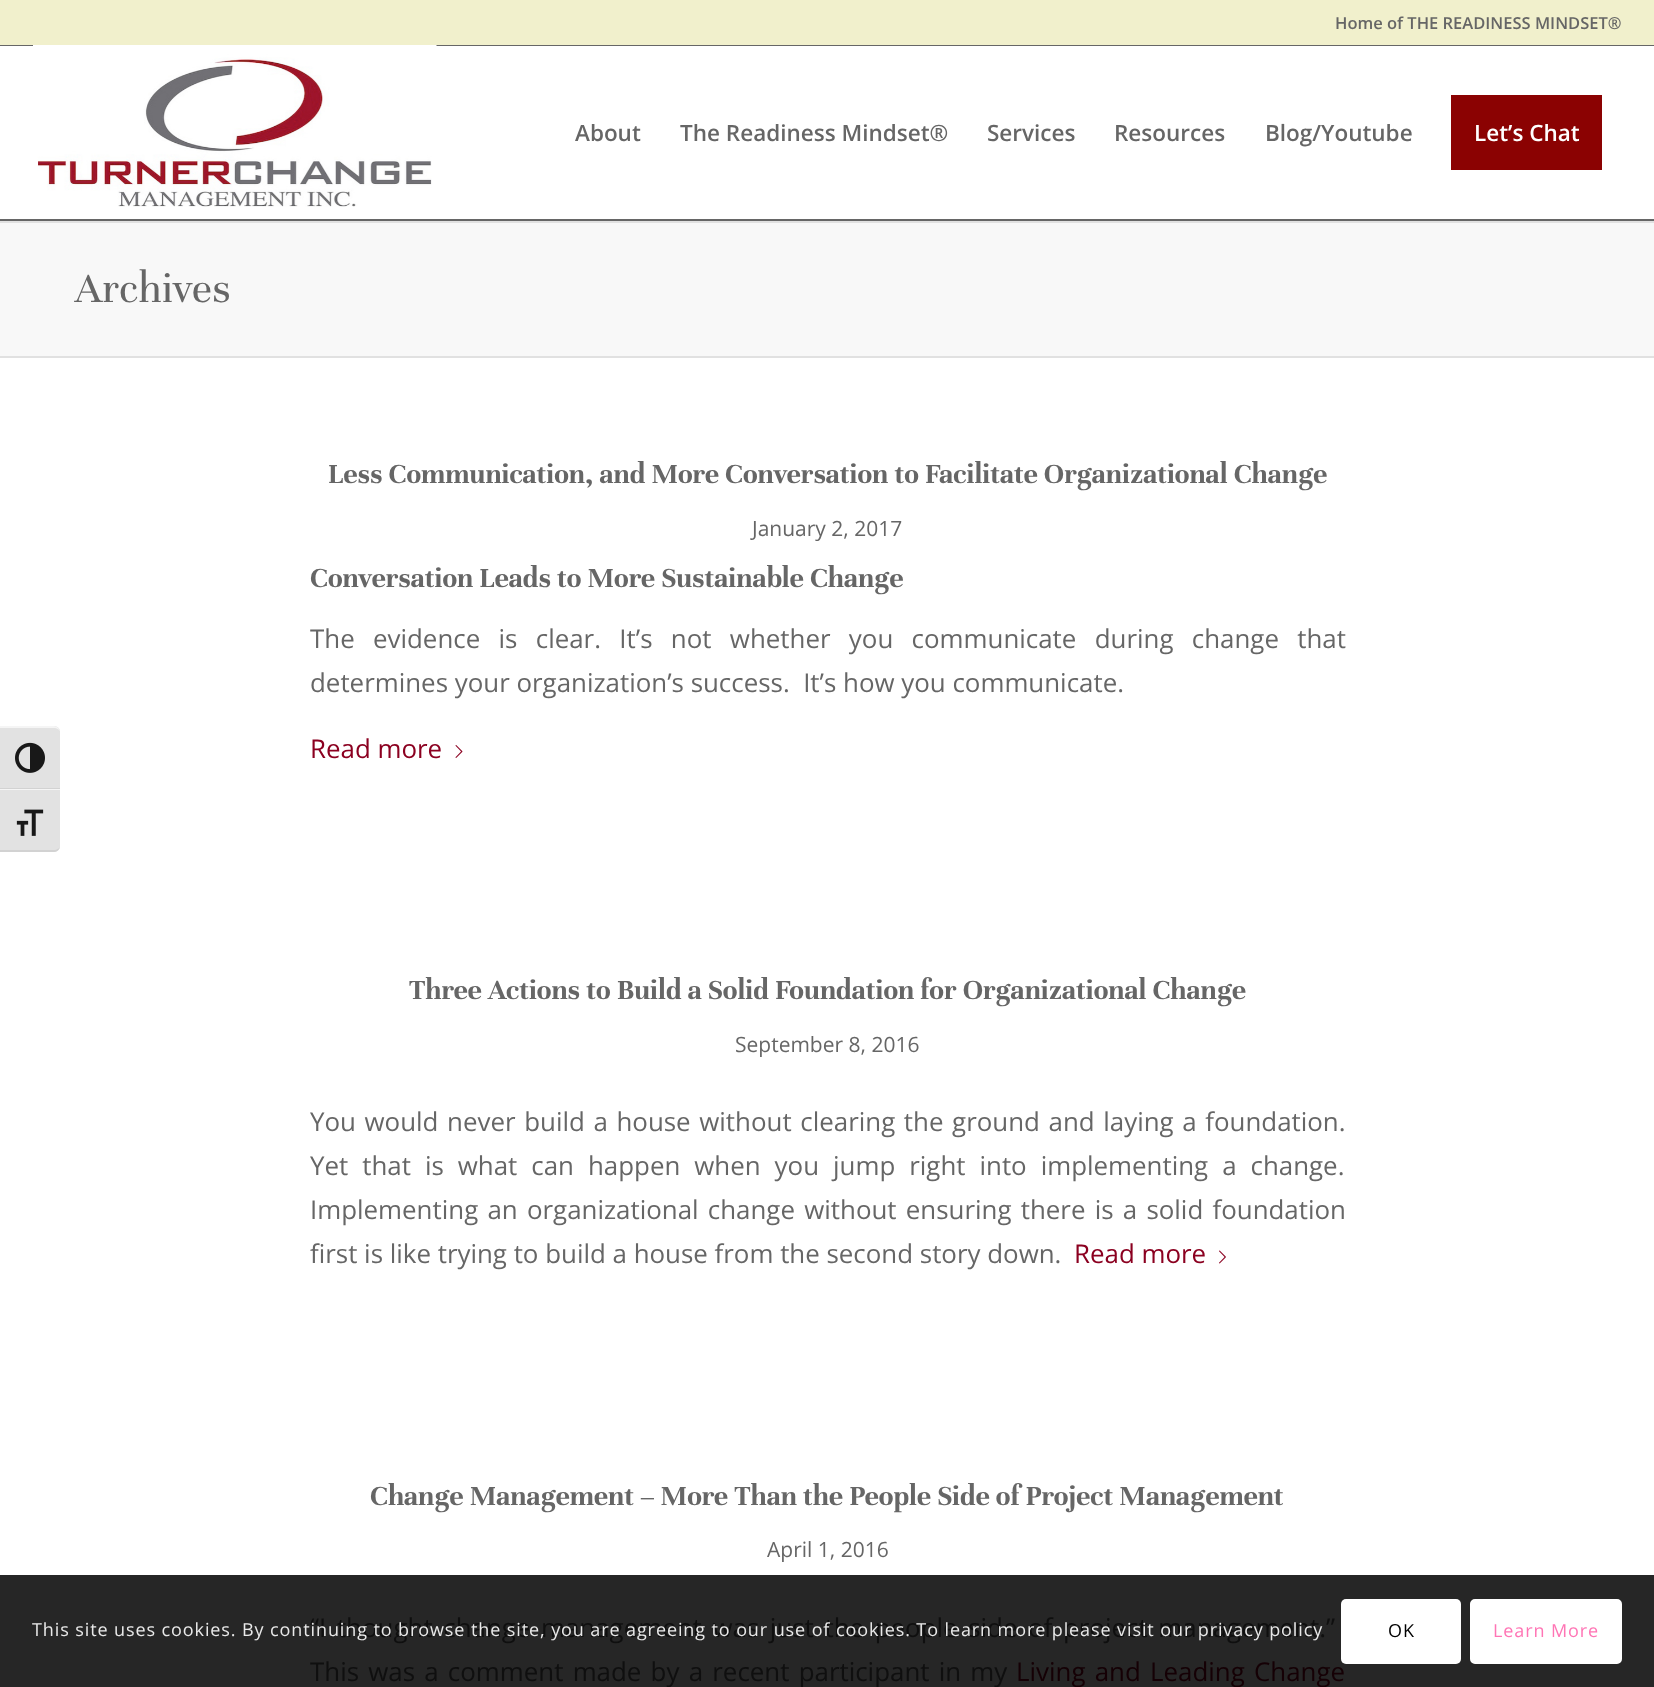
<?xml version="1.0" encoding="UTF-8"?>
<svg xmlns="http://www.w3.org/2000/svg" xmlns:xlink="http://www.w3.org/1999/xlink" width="1654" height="1687">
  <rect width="100%" height="100%" fill="#ffffff" />
  <path d="M 0 726 h 54 c 3.5 0 6 2.5 6 6 v 57 h -60 z" fill="#e2e2e2" />
  <path d="M 0 726 v 2 h 54 c 3 0 6 2 6 4 c 0 -3 -3 -6 -6 -6 z" fill="#f5f5f5" />
  <rect y="788" width="60" height="1" fill="#d2d2d2" />
  <image x="15" y="742" width="30" height="31" xlink:href="image1.png" />
  <path d="M 0 789 h 60 v 57 c 0 3.5 -2.5 6 -6 6 h -54 z" fill="#e2e2e2" />
  <rect y="789" width="60" height="1" fill="#f5f5f5" />
  <path d="M 0 850 v 2 h 54 c 3 0 6 -3 6 -6 c 0 2 -3 4 -6 4 z" fill="#d2d2d2" />
  <image x="16" y="809" width="28" height="27" xlink:href="image2.png" />
  <rect y="1575" width="1654" height="112" fill="#262626" />
  <rect width="1654" height="45" fill="#f1f0cc" />
  <rect y="45" width="1654" height="1" fill="#666666" />
  <rect y="219" width="1654" height="2" fill="#666666" />
  <image x="33" y="45" width="404" height="162" xlink:href="image3.png" />
  <rect x="1451" y="95" width="151" height="75" fill="#8b0202" />
  <rect y="223" width="1654" height="133" fill="#f8f8f8" />
  <rect y="221" width="1654" height="2" fill="#e1e1e1" />
  <rect y="356" width="1654" height="2" fill="#e1e1e1" />
  <image x="455" y="745" width="8" height="13" xlink:href="image4.png" />
  <image x="1219" y="1250" width="7" height="14" xlink:href="image5.png" />
  <rect x="1471.5" y="1600.5" width="149" height="62" rx="3.5" fill="#ffffff" stroke="#ffffff" stroke-width="3" />
  <text x="1335" y="29" style="font-family: Open Sans; font-size: 16.5px; font-weight: 600; fill: #666666">Home of THE READINESS MINDSET®</text>
  <text x="575" y="141" style="font-family: Open Sans; font-size: 22.5px; font-weight: 600; fill: #666666">About</text>
  <text x="680" y="141" style="font-family: Open Sans; font-size: 22.5px; font-weight: 600; fill: #666666">The Readiness Mindset®</text>
  <text x="987" y="141" style="font-family: Open Sans; font-size: 22.5px; font-weight: 600; fill: #666666">Services</text>
  <text x="1114" y="141" style="font-family: Open Sans; font-size: 22.5px; font-weight: 600; fill: #666666">Resources</text>
  <text x="1265" y="141" style="font-family: Open Sans; font-size: 22.5px; font-weight: 600; fill: #666666">Blog/Youtube</text>
  <text x="1474" y="141" style="font-family: Open Sans; font-size: 22.5px; font-weight: 600; fill: #ffffff">Let’s Chat</text>
  <text x="75" y="302" style="font-family: Unna; font-size: 45px; fill: #666666">Archives</text>
  <text x="328" y="483" style="font-family: Unna; font-size: 30px; font-weight: bold; fill: #666666">Less Communication, and More Conversation to Facilitate Organizational Change</text>
  <text x="752" y="536" style="font-family: Open Sans; font-size: 21px; fill: #666666">January 2, 2017</text>
  <text x="310" y="587" style="font-family: Unna; font-size: 30px; font-weight: bold; fill: #666666">Conversation Leads to More Sustainable Change</text>
  <text x="310" y="648" word-spacing="11.6" style="font-family: Open Sans; font-size: 25.9px; fill: #666666">The evidence is clear. It’s not whether you communicate during change that</text>
  <text x="310" y="692" style="font-family: Open Sans; font-size: 25.9px; fill: #666666" xml:space="preserve">determines your organization’s success.  It’s how you communicate.</text>
  <text x="310" y="758" style="font-family: Open Sans; font-size: 25.9px; fill: #8b0020">Read more</text>
  <text x="409" y="999" style="font-family: Unna; font-size: 30px; font-weight: bold; fill: #666666">Three Actions to Build a Solid Foundation for Organizational Change</text>
  <text x="735" y="1052" style="font-family: Open Sans; font-size: 21px; fill: #666666">September 8, 2016</text>
  <text x="310" y="1131" word-spacing="1.9" style="font-family: Open Sans; font-size: 25.9px; fill: #666666">You would never build a house without clearing the ground and laying a foundation.</text>
  <text x="310" y="1175" word-spacing="7.25" style="font-family: Open Sans; font-size: 25.9px; fill: #666666">Yet that is what can happen when you jump right into implementing a change.</text>
  <text x="310" y="1219" word-spacing="2.5" style="font-family: Open Sans; font-size: 25.9px; fill: #666666">Implementing an organizational change without ensuring there is a solid foundation</text>
  <text x="310" y="1263" style="font-family: Open Sans; font-size: 25.9px; fill: #666666">first is like trying to build a house from the second story down.</text>
  <text x="1074" y="1263" style="font-family: Open Sans; font-size: 25.9px; fill: #8b0020">Read more</text>
  <text x="370" y="1505" style="font-family: Unna; font-size: 30px; font-weight: bold; fill: #666666">Change Management – More Than the People Side of Project Management</text>
  <text x="767" y="1557" style="font-family: Open Sans; font-size: 21px; fill: #666666">April 1, 2016</text>
  <text x="310" y="1637" word-spacing="3.9" style="font-family: Open Sans; font-size: 25.9px; fill: #0f0f0f">“I thought change management was just the people side of project management.”</text>
  <text x="310" y="1681" word-spacing="2.5" style="font-family: Open Sans; font-size: 25.9px; fill: #0f0f0f">This was a comment made by a recent participant in my</text>
  <text x="1016" y="1681" word-spacing="2.5" style="font-family: Open Sans; font-size: 25.9px; fill: #150005">Living and Leading Change</text>
  <text x="32" y="1636" style="font-family: Open Sans; font-size: 18px; letter-spacing: 0.9px; fill: #e9e9e9">This site uses cookies. By continuing to browse the site, you are agreeing to our use of cookies. To learn more please visit our privacy policy</text>
  <rect x="1341" y="1599" width="120" height="65" rx="5" fill="#ffffff" />
  <text x="1388" y="1637" style="font-family: Open Sans; font-size: 18px; letter-spacing: 0.9px; fill: #000000">OK</text>
  <text x="1493" y="1637" style="font-family: Open Sans; font-size: 18px; letter-spacing: 0.9px; fill: #ff75b5">Learn More</text>
</svg>
